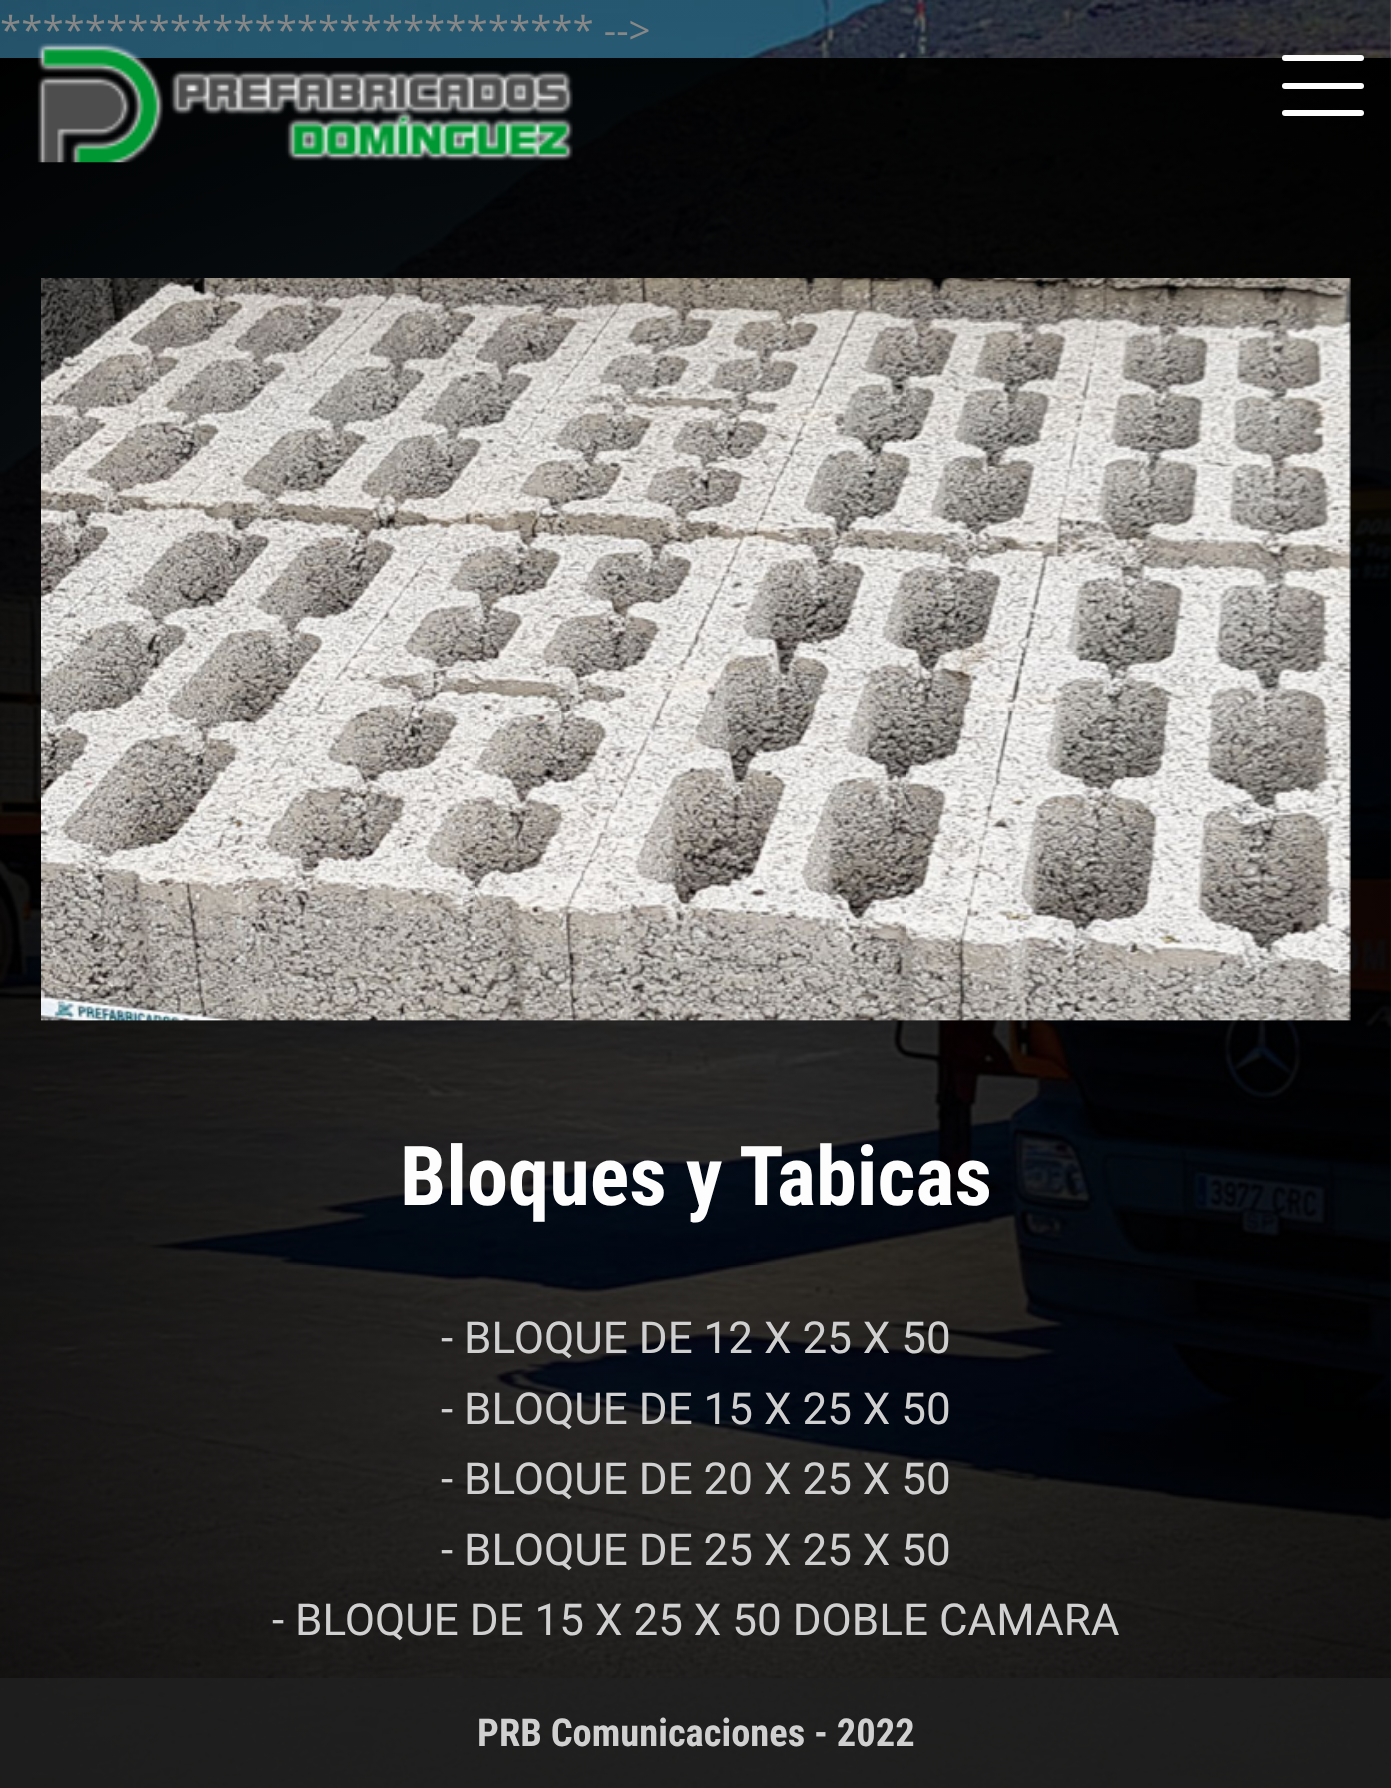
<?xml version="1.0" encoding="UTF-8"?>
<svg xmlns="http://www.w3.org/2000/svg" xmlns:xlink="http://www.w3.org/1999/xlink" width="1391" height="1788">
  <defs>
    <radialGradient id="g1" gradientUnits="userSpaceOnUse" cx="696" cy="895" r="1134"><stop offset="0" stop-color="#000000" stop-opacity="0.2" /><stop offset="1" stop-color="#000000" stop-opacity="0.4" /></radialGradient>
    <radialGradient id="g2" gradientUnits="userSpaceOnUse" cx="696" cy="1356" r="1473"><stop offset="0" stop-color="#000000" stop-opacity="0.5" /><stop offset="1" stop-color="#000000" /></radialGradient>
  </defs>
  <rect width="100%" height="100%" fill="#ffffff" />
  <image x="0" y="0" width="1391" height="1788" xlink:href="image1.png" />
  <rect width="1391" height="1788" fill="url(#g1)" />
  <rect y="58" width="1391" height="1730" fill="url(#g2)" />
  <image x="41" y="278" width="1310" height="743" xlink:href="image2.png" />
  <image x="37" y="43" width="536" height="120" xlink:href="image3.png" />
  <rect x="1282" y="83" width="82" height="6" rx="3" fill="#fdfdfd" />
  <rect x="1282" y="55" width="82" height="6" rx="3" fill="#fdfdfd" />
  <rect x="1282" y="110" width="82" height="6" rx="3" fill="#fdfdfd" />
  <rect y="1678" width="1391" height="110" fill="#212121" fill-opacity="0.8" />
  <text x="0" y="44" style="font-family: Open Sans; font-size: 38.5px; fill: #878787">**************************** --&gt;</text>
  <text x="400" y="1205" style="font-family: Roboto Condensed; font-size: 82.5px; font-weight: bold; fill: #fdfdfd">Bloques y Tabicas</text>
  <text x="441" y="1353" style="font-family: Roboto; font-size: 44px; fill: #d1d0d0">- BLOQUE DE 12 X 25 X 50</text>
  <text x="441" y="1424" style="font-family: Roboto; font-size: 44px; fill: #d1d0d0">- BLOQUE DE 15 X 25 X 50</text>
  <text x="441" y="1494" style="font-family: Roboto; font-size: 44px; fill: #d1d0d0">- BLOQUE DE 20 X 25 X 50</text>
  <text x="441" y="1565" style="font-family: Roboto; font-size: 44px; fill: #d1d0d0">- BLOQUE DE 25 X 25 X 50</text>
  <text x="272" y="1635" style="font-family: Roboto; font-size: 44px; fill: #d1d0d0">- BLOQUE DE 15 X 25 X 50 DOBLE CAMARA</text>
  <text x="477" y="1746" style="font-family: Roboto Condensed; font-size: 38.5px; font-weight: bold; fill: #d1d0d0">PRB Comunicaciones - 2022</text>
</svg>
